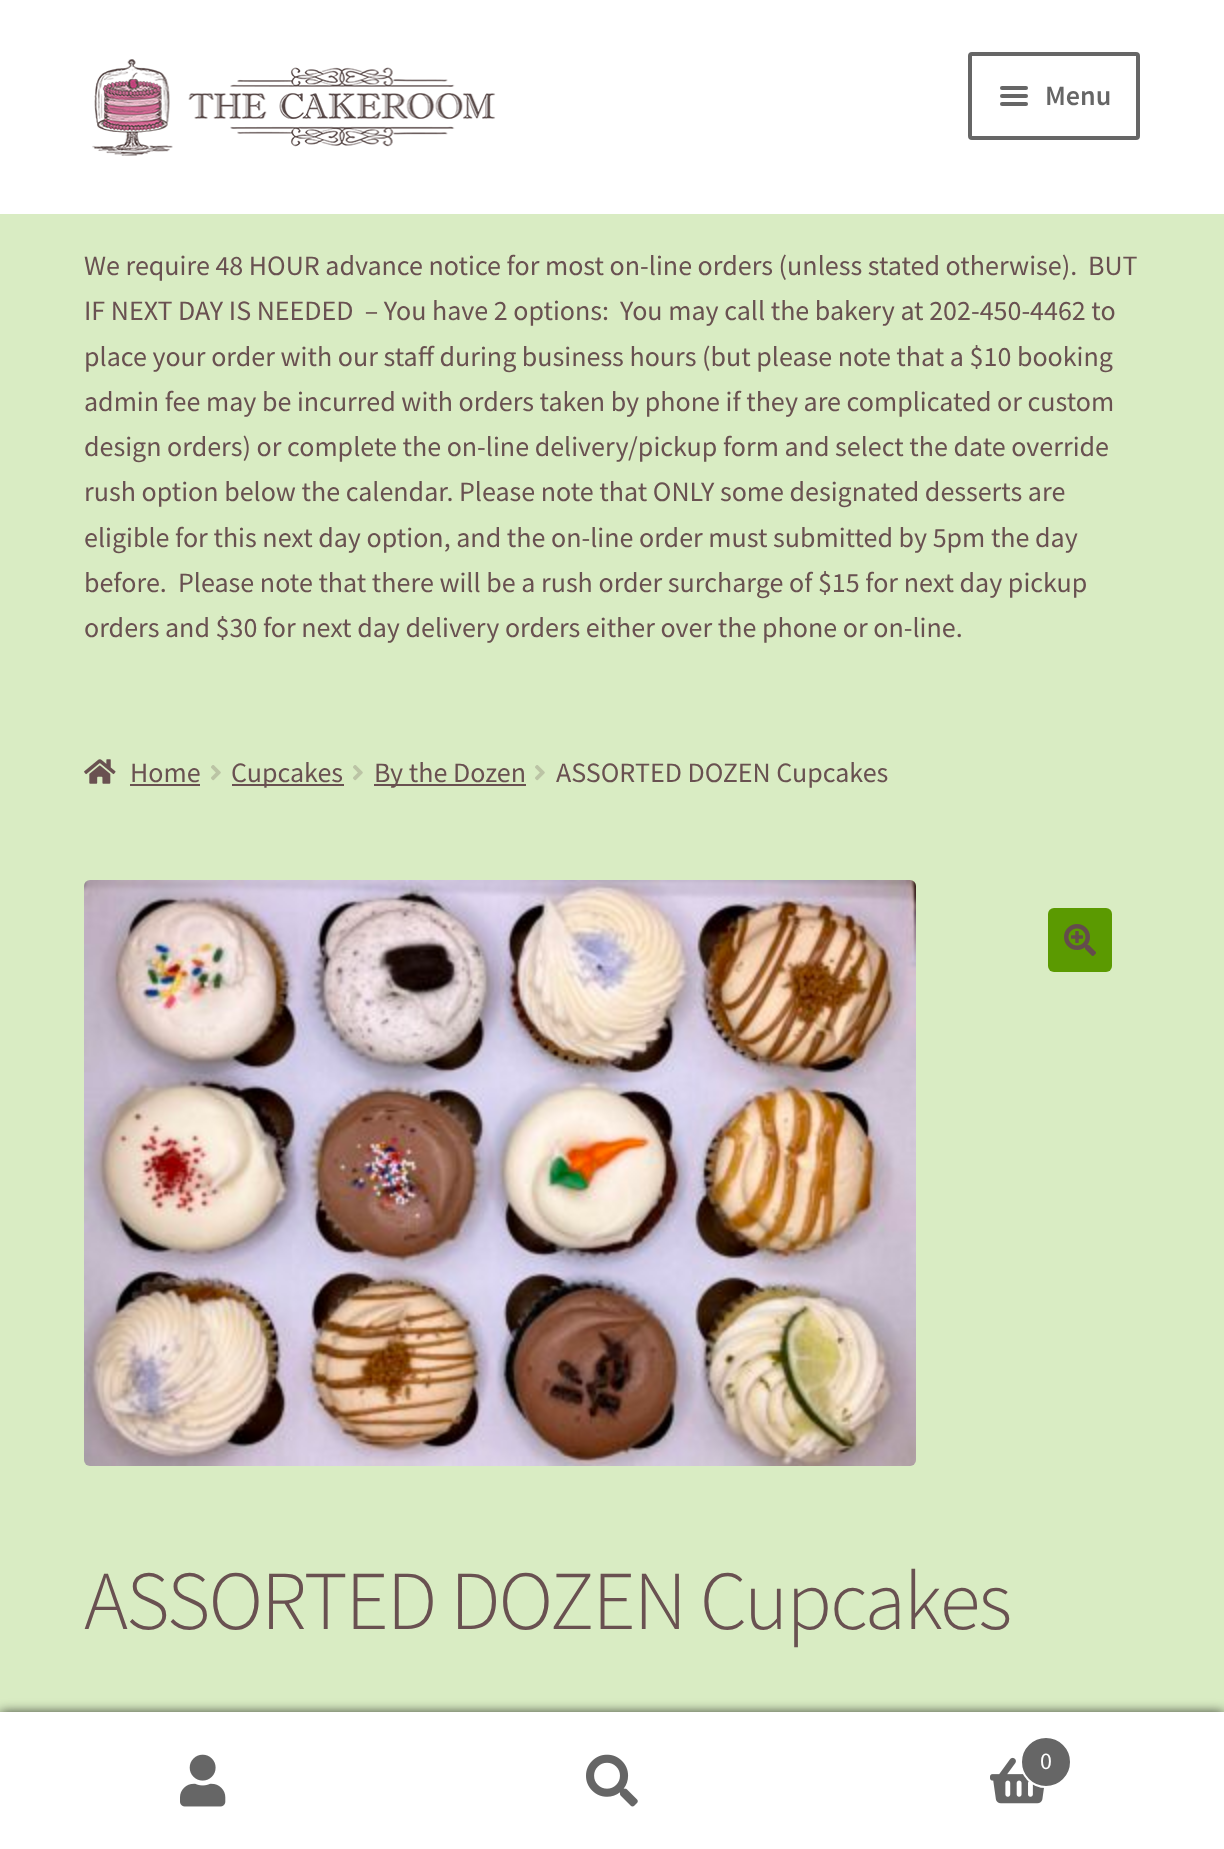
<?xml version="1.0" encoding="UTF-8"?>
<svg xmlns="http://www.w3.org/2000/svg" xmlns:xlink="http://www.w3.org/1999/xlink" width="1224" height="1849">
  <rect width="100%" height="100%" fill="#d9ecc3" />
  <rect width="1224" height="214" fill="#ffffff" />
  <image x="92" y="59" width="404" height="97" xlink:href="image1.png" />
  <rect x="970" y="54" width="168" height="84" rx="2" fill="none" stroke="#666666" stroke-width="4" />
  <rect x="1000" y="86" width="28" height="4" rx="2" fill="#666666" />
  <rect x="1000" y="94" width="28" height="4" rx="2" fill="#666666" />
  <rect x="1000" y="102" width="28" height="4" rx="2" fill="#666666" />
  <image x="84" y="759" width="32" height="25" xlink:href="image2.png" />
  <rect x="130" y="784" width="70" height="2" fill="#695151" />
  <image x="211" y="765" width="10" height="16" xlink:href="image3.png" />
  <rect x="232" y="784" width="112" height="2" fill="#695151" />
  <image x="353" y="765" width="10" height="16" xlink:href="image3.png" />
  <rect x="374" y="784" width="152" height="2" fill="#695151" />
  <image x="535" y="765" width="10" height="16" xlink:href="image3.png" />
  <image x="84" y="880" width="832" height="586" xlink:href="image4.png" />
  <rect x="1048" y="908" width="64" height="64" rx="6" fill="#5b9a01" />
  <image x="1064" y="924" width="32" height="32" xlink:href="image5.png" />
  <rect y="1712" width="1224" height="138" fill="#000000" fill-opacity="0.7" filter="blur(6px)" />
  <rect y="1712" width="1224" height="2" fill="#ffffff" />
  <rect y="1714" width="1224" height="135" fill="#ffffff" />
  <image x="180" y="1754" width="46" height="53" xlink:href="image6.png" />
  <image x="586" y="1754" width="52" height="53" xlink:href="image7.png" />
  <image x="990" y="1757" width="55" height="47" xlink:href="image8.png" />
  <circle cx="1046" cy="1762" r="25" fill="#666666" stroke="#ffffff" stroke-width="2" />
  <text x="1045" y="105" style="font-family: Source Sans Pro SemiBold; font-size: 28px; font-weight: 600; fill: #666666">Menu</text>
  <text x="84" y="275" style="font-family: Source Sans Pro; font-size: 28px; fill: #695151">We require 48 HOUR advance notice for most on-line orders (unless stated otherwise).</text>
  <text x="1088" y="275" style="font-family: Source Sans Pro; font-size: 28px; fill: #695151">BUT</text>
  <text x="84" y="320" style="font-family: Source Sans Pro; font-size: 28px; fill: #695151" xml:space="preserve">IF NEXT DAY IS NEEDED  – You have 2 options:</text>
  <text x="620" y="320" style="font-family: Source Sans Pro; font-size: 28px; fill: #695151">You may call the bakery at 202-450-4462 to</text>
  <text x="84" y="366" style="font-family: Source Sans Pro; font-size: 28px; fill: #695151">place your order with our staff during business hours (but please note that a $10 booking</text>
  <text x="84" y="411" style="font-family: Source Sans Pro; font-size: 28px; fill: #695151">admin fee may be incurred with orders taken by phone if they are complicated or custom</text>
  <text x="84" y="456" style="font-family: Source Sans Pro; font-size: 28px; fill: #695151">design orders) or complete the on-line delivery/pickup form and select the date override</text>
  <text x="84" y="501" style="font-family: Source Sans Pro; font-size: 28px; fill: #695151">rush option below the calendar. Please note that ONLY some designated desserts are</text>
  <text x="84" y="547" style="font-family: Source Sans Pro; font-size: 28px; fill: #695151">eligible for this next day option, and the on-line order must submitted by 5pm the day</text>
  <text x="84" y="592" style="font-family: Source Sans Pro; font-size: 28px; fill: #695151">before.</text>
  <text x="178" y="592" style="font-family: Source Sans Pro; font-size: 28px; fill: #695151">Please note that there will be a rush order surcharge of $15 for next day pickup</text>
  <text x="84" y="637" style="font-family: Source Sans Pro; font-size: 28px; fill: #695151">orders and $30 for next day delivery orders either over the phone or on-line.</text>
  <text x="130" y="782" style="font-family: Source Sans Pro; font-size: 28px; fill: #695151">Home</text>
  <text x="231" y="782" style="font-family: Source Sans Pro; font-size: 28px; fill: #695151">Cupcakes</text>
  <text x="374" y="782" style="font-family: Source Sans Pro; font-size: 28px; fill: #695151">By the Dozen</text>
  <text x="556" y="782" style="font-family: Source Sans Pro; font-size: 28px; fill: #695151">ASSORTED DOZEN Cupcakes</text>
  <text x="84" y="1629" style="font-family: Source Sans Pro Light; font-size: 83.75px; font-weight: 300; letter-spacing: -2px; fill: #695151">ASSORTED DOZEN Cupcakes</text>
  <text x="1040" y="1769" style="font-family: Source Sans Pro; font-size: 24px; fill: #ffffff">0</text>
</svg>
